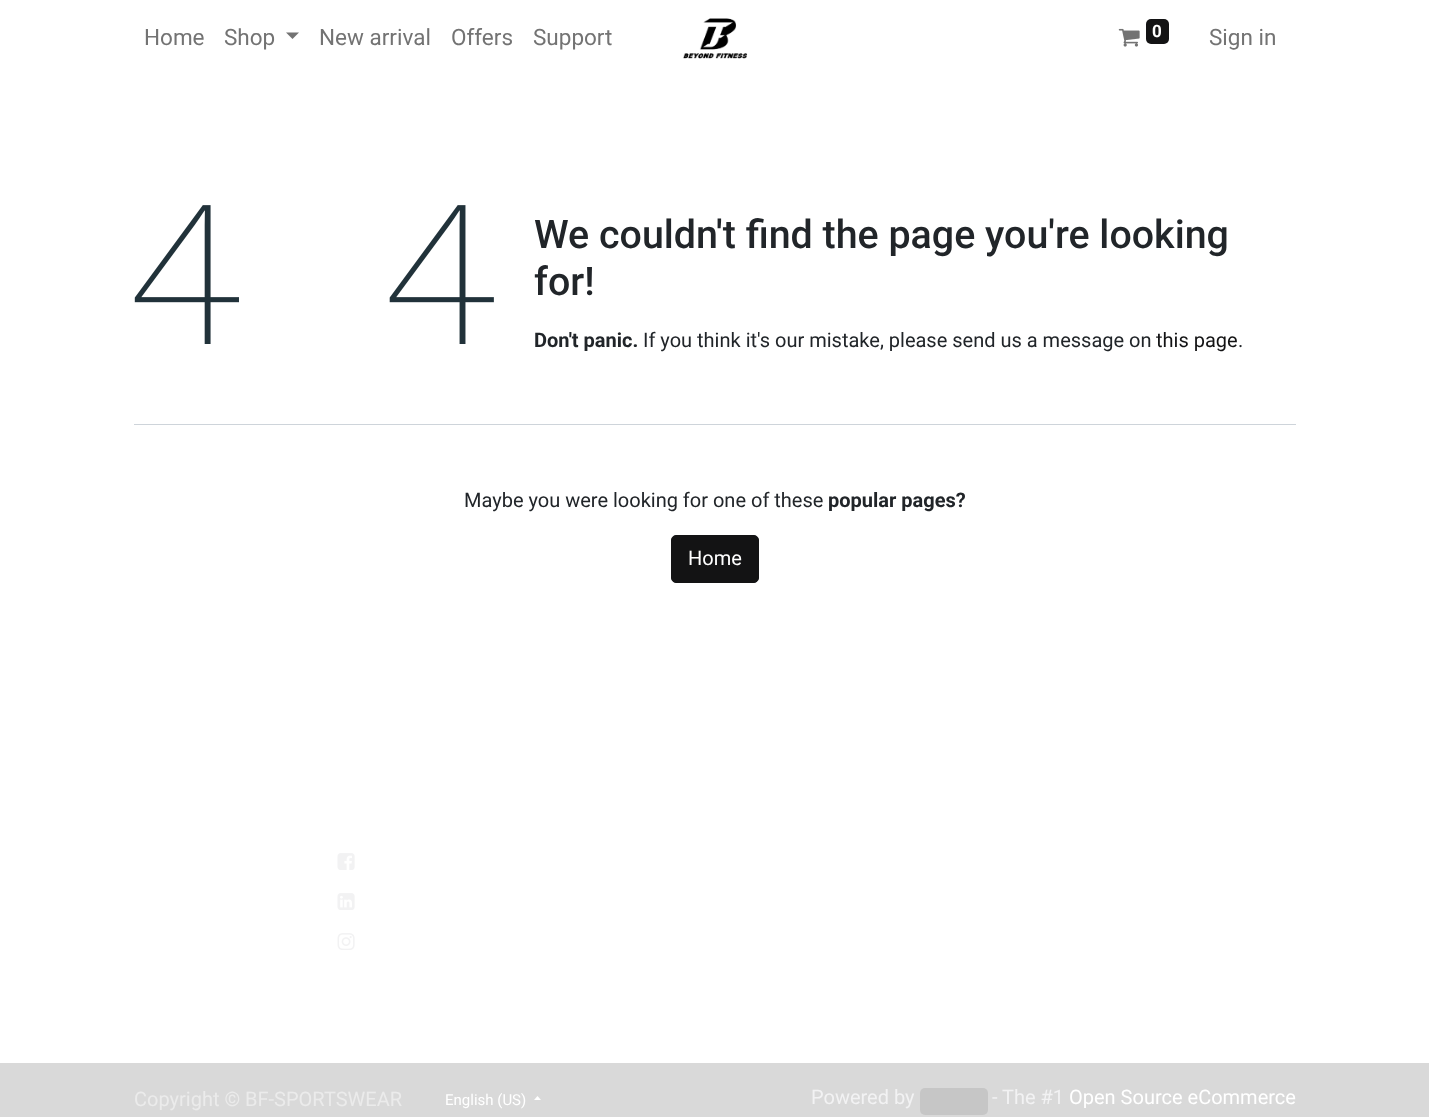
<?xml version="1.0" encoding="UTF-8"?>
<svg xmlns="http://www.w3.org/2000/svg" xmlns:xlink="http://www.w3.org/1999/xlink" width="1429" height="1117">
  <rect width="100%" height="100%" fill="#ffffff" />
  <path d="M 286 32.5 h 13 l -6.5 6.5 z" fill="#737373" />
  <image x="683" y="18" width="65" height="41" xlink:href="image1.png" />
  <image x="1118" y="28" width="22" height="19" xlink:href="image2.png" />
  <rect x="1146" y="19" width="23" height="25" rx="5" fill="#131314" />
  <image x="134" y="205" width="360" height="139" xlink:href="image3.png" />
  <rect x="134" y="424" width="1162" height="1" fill="#ced4da" />
  <rect x="671.5" y="535.5" width="87" height="47" rx="4.5" fill="#131314" stroke="#131314" />
  <image x="337" y="853" width="18" height="17" xlink:href="image4.png" />
  <image x="337" y="893" width="18" height="17" xlink:href="image5.png" />
  <image x="337" y="933" width="18" height="17" xlink:href="image6.png" />
  <rect y="1063" width="1429" height="54" fill="#d9d9d9" />
  <path d="M 541 1100 h -7 l 3.5 -4 z" fill="#ffffff" />
  <rect x="920" y="1088" width="68" height="27" rx="5" fill="#c6c6c6" />
  <text x="144" y="45" style="font-family: Roboto; font-size: 22.5px; fill: #737373">Home</text>
  <text x="224" y="45" style="font-family: Roboto; font-size: 22.5px; fill: #737373">Shop</text>
  <text x="319" y="45" style="font-family: Roboto; font-size: 22.5px; fill: #737373">New arrival</text>
  <text x="451" y="45" style="font-family: Roboto; font-size: 22.5px; fill: #737373">Offers</text>
  <text x="533" y="45" style="font-family: Roboto; font-size: 22.5px; fill: #737373">Support</text>
  <text x="1152" y="37" style="font-family: Roboto; font-size: 17px; font-weight: bold; fill: #ffffff">0</text>
  <text x="1209" y="45" style="font-family: Roboto; font-size: 22.5px; fill: #737373">Sign in</text>
  <text x="534" y="248" style="font-family: Roboto; font-size: 39.4px; font-weight: 500; fill: #212529">We couldn't find the page you're looking</text>
  <text x="534" y="295" style="font-family: Roboto; font-size: 39.4px; font-weight: 500; fill: #212529">for!</text>
  <text x="534" y="347" style="font-family: Roboto; font-size: 20px; font-weight: bold; fill: #212529">Don't panic.</text>
  <text x="643" y="347" style="font-family: Roboto; font-size: 20px; fill: #212529">If you think it's our mistake, please send us a message on</text>
  <text x="1156" y="347" style="font-family: Roboto; font-size: 20px; fill: #131314">this page</text>
  <text x="1238" y="347" style="font-family: Roboto; font-size: 20px; fill: #212529">.</text>
  <text x="464" y="507" style="font-family: Roboto; font-size: 20px; fill: #212529">Maybe you were looking for one of these</text>
  <text x="828" y="507" style="font-family: Roboto; font-size: 20px; font-weight: bold; fill: #212529">popular pages?</text>
  <text x="688" y="565" style="font-family: Roboto; font-size: 20px; fill: #ffffff">Home</text>
  <text x="134" y="1106" style="font-family: Roboto; font-size: 20px; fill: #ebebeb">Copyright © BF-SPORTSWEAR</text>
  <text x="445" y="1105" style="font-family: Roboto; font-size: 15px; fill: #ffffff">English (US)</text>
  <text x="811" y="1104" style="font-family: Roboto; font-size: 20px; fill: #f2f2f3">Powered by</text>
  <text x="992" y="1104" style="font-family: Roboto; font-size: 20px; fill: #f2f2f3">-</text>
  <text x="1002" y="1104" style="font-family: Roboto; font-size: 20px; fill: #f2f2f3">The #1</text>
  <text x="1069" y="1104" style="font-family: Roboto; font-size: 20px; fill: #ffffff">Open Source eCommerce</text>
</svg>
